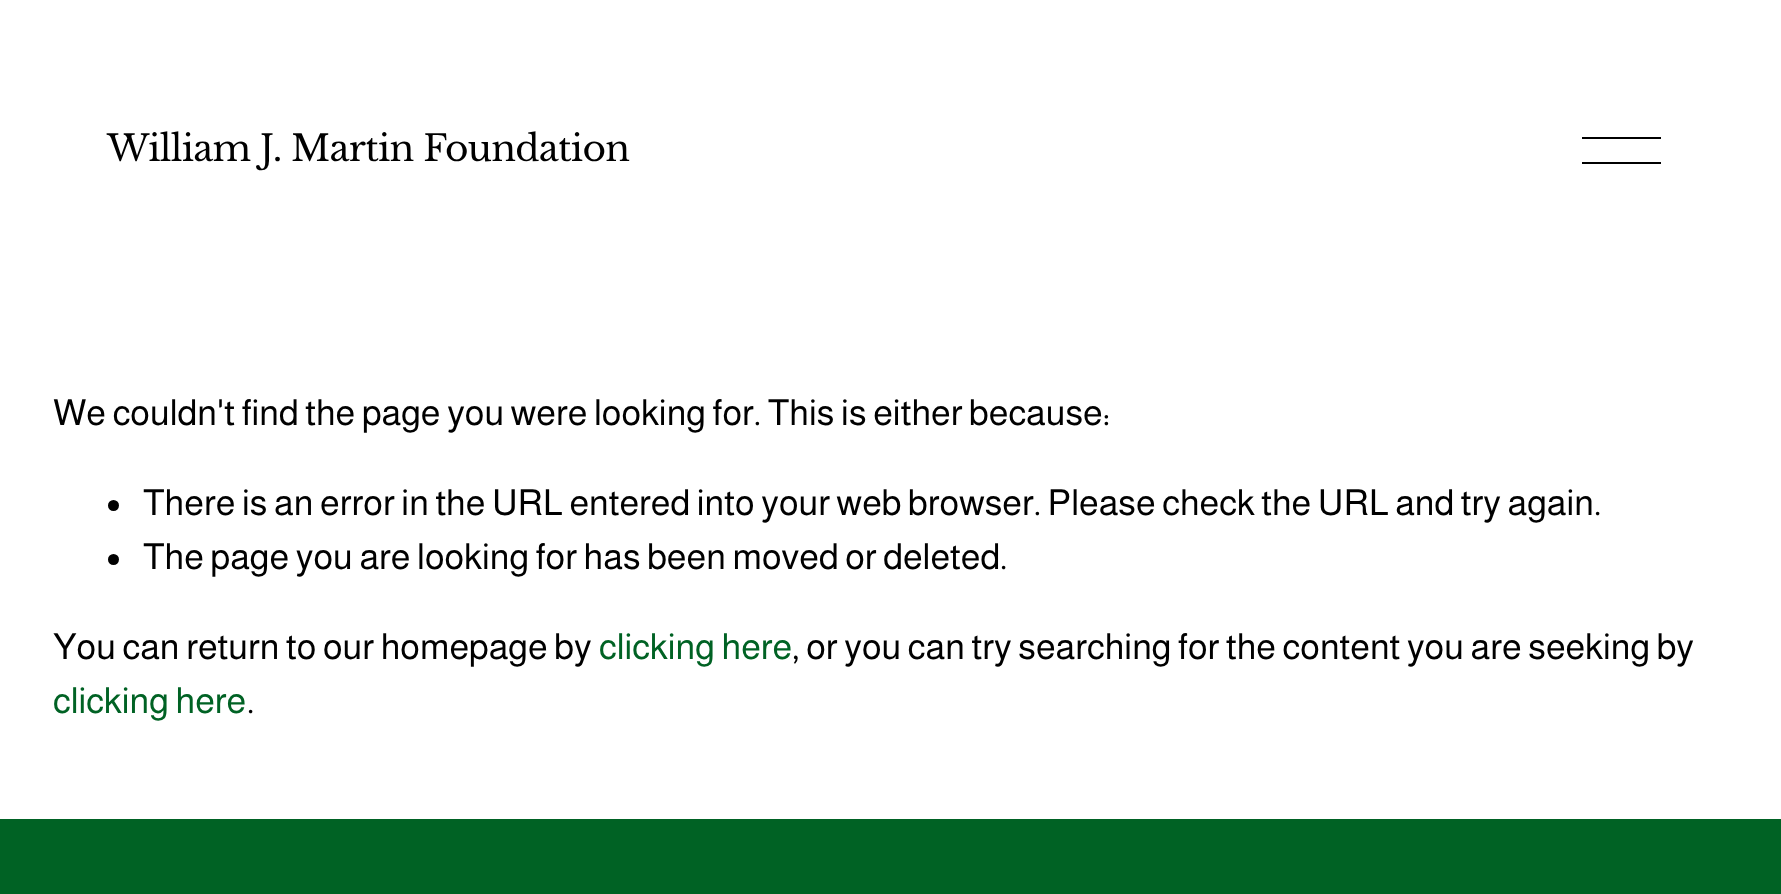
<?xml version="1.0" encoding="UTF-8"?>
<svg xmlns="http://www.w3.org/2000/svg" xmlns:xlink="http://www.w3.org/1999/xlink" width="1781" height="894">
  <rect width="100%" height="100%" fill="#ffffff" />
  <rect x="1582" y="137" width="79" height="2" fill="#000000" />
  <rect x="1582" y="162" width="79" height="2" fill="#000000" />
  <circle cx="113.5" cy="505.5" r="5.5" fill="#000000" />
  <circle cx="113.5" cy="559.5" r="5.5" fill="#000000" />
  <rect y="819" width="1781" height="75" fill="#006224" />
  <text x="107" y="161" style="font-family: Libre Baskerville; font-size: 36px; letter-spacing: -0.75px; fill: #000000">William J. Martin Foundation</text>
  <text x="53" y="425" style="font-family: Almarai; font-size: 36px; fill: #000000">We couldn't find the page you were looking for. This is either because:</text>
  <text x="143" y="515" style="font-family: Almarai; font-size: 36px; fill: #000000">There is an error in the URL entered into your web browser. Please check the URL and try again.</text>
  <text x="143" y="569" style="font-family: Almarai; font-size: 36px; fill: #000000">The page you are looking for has been moved or deleted.</text>
  <text x="53" y="659" style="font-family: Almarai; font-size: 36px; fill: #000000">You can return to our homepage by</text>
  <text x="599" y="659" style="font-family: Almarai; font-size: 36px; fill: #006224">clicking here</text>
  <text x="792" y="659" style="font-family: Almarai; font-size: 36px; fill: #000000">, or you can try searching for the content you are seeking by</text>
  <text x="53" y="713" style="font-family: Almarai; font-size: 36px; fill: #006224">clicking here</text>
  <text x="247" y="713" style="font-family: Almarai; font-size: 36px; fill: #000000">.</text>
</svg>
